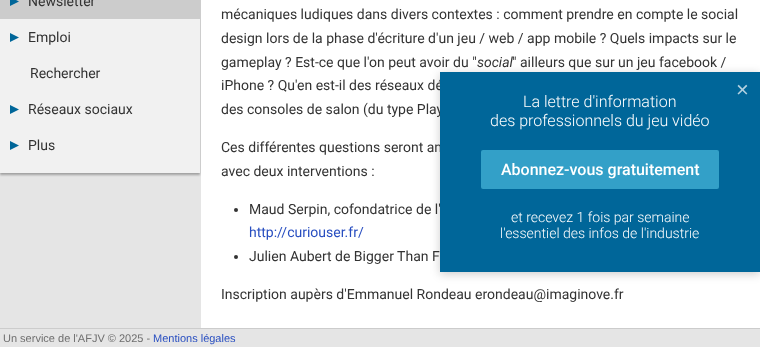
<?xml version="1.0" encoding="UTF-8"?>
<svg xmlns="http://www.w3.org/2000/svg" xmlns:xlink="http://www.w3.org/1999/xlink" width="760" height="347">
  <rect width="100%" height="100%" fill="#e5e5e5" />
  <rect y="-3" width="200" height="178" fill="#000000" fill-opacity="0.3" filter="blur(1px)" />
  <rect y="19" width="200" height="154" fill="#f1f1f1" />
  <rect width="200" height="19" fill="#cccccc" />
  <path d="M 10 -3 l 9 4.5 l -9 4.5 z" fill="#006699" />
  <path d="M 10 33 l 9 4.5 l -9 4.5 z" fill="#006699" />
  <path d="M 10 105 l 9 4.5 l -9 4.5 z" fill="#006699" />
  <path d="M 10 141 l 9 4.5 l -9 4.5 z" fill="#006699" />
  <rect x="201" width="559" height="328" fill="#ffffff" />
  <circle cx="236" cy="210" r="2" fill="#333333" />
  <circle cx="236" cy="257" r="2" fill="#333333" />
  <rect x="440" y="74" width="320" height="200" fill="#000000" fill-opacity="0.2" filter="blur(5px)" />
  <rect y="328" width="760" height="1" fill="#cccccc" />
  <text x="28" y="6" style="font-family: Roboto; font-size: 14px; fill: #333333">Newsletter</text>
  <text x="28" y="42" style="font-family: Roboto; font-size: 14px; fill: #333333">Emploi</text>
  <text x="30" y="78" style="font-family: Roboto; font-size: 14px; fill: #333333">Rechercher</text>
  <text x="28" y="114" style="font-family: Roboto; font-size: 14px; fill: #333333">Réseaux sociaux</text>
  <text x="28" y="150" style="font-family: Roboto; font-size: 14px; fill: #333333">Plus</text>
  <text x="221" y="19" style="font-family: Roboto; font-size: 14px; fill: #333333">mécaniques ludiques dans divers contextes : comment prendre en compte le social</text>
  <text x="221" y="43" style="font-family: Roboto; font-size: 14px; fill: #333333">design lors de la phase d'écriture d'un jeu / web / app mobile ? Quels impacts sur le</text>
  <text x="221" y="67" style="font-family: Roboto; font-size: 14px; fill: #333333">gameplay ? Est-ce que l'on peut avoir du "</text>
  <text x="477" y="67" style="font-family: Roboto; font-size: 14px; font-style: italic; fill: #333333">social</text>
  <text x="512" y="67" style="font-family: Roboto; font-size: 14px; fill: #333333">" ailleurs que sur un jeu facebook /</text>
  <text x="221" y="90" style="font-family: Roboto; font-size: 14px; fill: #333333">iPhone ? Qu'en est-il des réseaux dé</text>
  <text x="221" y="114" style="font-family: Roboto; font-size: 14px; fill: #333333">des consoles de salon (du type Play</text>
  <text x="221" y="152" style="font-family: Roboto; font-size: 14px; fill: #333333">Ces différentes questions seront an</text>
  <text x="221" y="176" style="font-family: Roboto; font-size: 14px; fill: #333333">avec deux interventions :</text>
  <text x="249" y="214" style="font-family: Roboto; font-size: 14px; fill: #333333">Maud Serpin, cofondatrice de l'</text>
  <text x="249" y="237" style="font-family: Roboto; font-size: 14px; fill: #284ec0">http://curiouser.fr/</text>
  <text x="249" y="261" style="font-family: Roboto; font-size: 14px; fill: #333333">Julien Aubert de Bigger Than F</text>
  <text x="221" y="299" style="font-family: Roboto; font-size: 14px; fill: #333333">Inscription aupèrs d'Emmanuel Rondeau erondeau@imaginove.fr</text>
  <rect x="440" y="72" width="320" height="200" fill="#006699" />
  <text x="736" y="97" style="font-family: Liberation Sans; font-size: 22px; fill: #b3d1e0">×</text>
  <text x="523" y="107" style="font-family: Roboto; font-size: 16px; font-weight: 300; fill: #ffffff">La lettre d'information</text>
  <text x="490" y="126" style="font-family: Roboto; font-size: 16px; font-weight: 300; fill: #ffffff">des professionnels du jeu vidéo</text>
  <rect x="481" y="150" width="238" height="39" rx="2" fill="#33a0c8" />
  <text x="501" y="175" style="font-family: Roboto; font-size: 16px; font-weight: 500; fill: #ffffff">Abonnez-vous gratuitement</text>
  <text x="511" y="222" style="font-family: Roboto; font-size: 14px; font-weight: 300; fill: #ffffff">et recevez 1 fois par semaine</text>
  <text x="500" y="238" style="font-family: Roboto; font-size: 14px; font-weight: 300; fill: #ffffff">l'essentiel des infos de l'industrie</text>
  <text x="3" y="342" style="font-family: Liberation Sans; font-size: 11px; fill: #6f6f6f">Un service de l'AFJV © 2025 -</text>
  <text x="153" y="342" style="font-family: Liberation Sans; font-size: 11px; fill: #284ec0">Mentions légales</text>
</svg>
